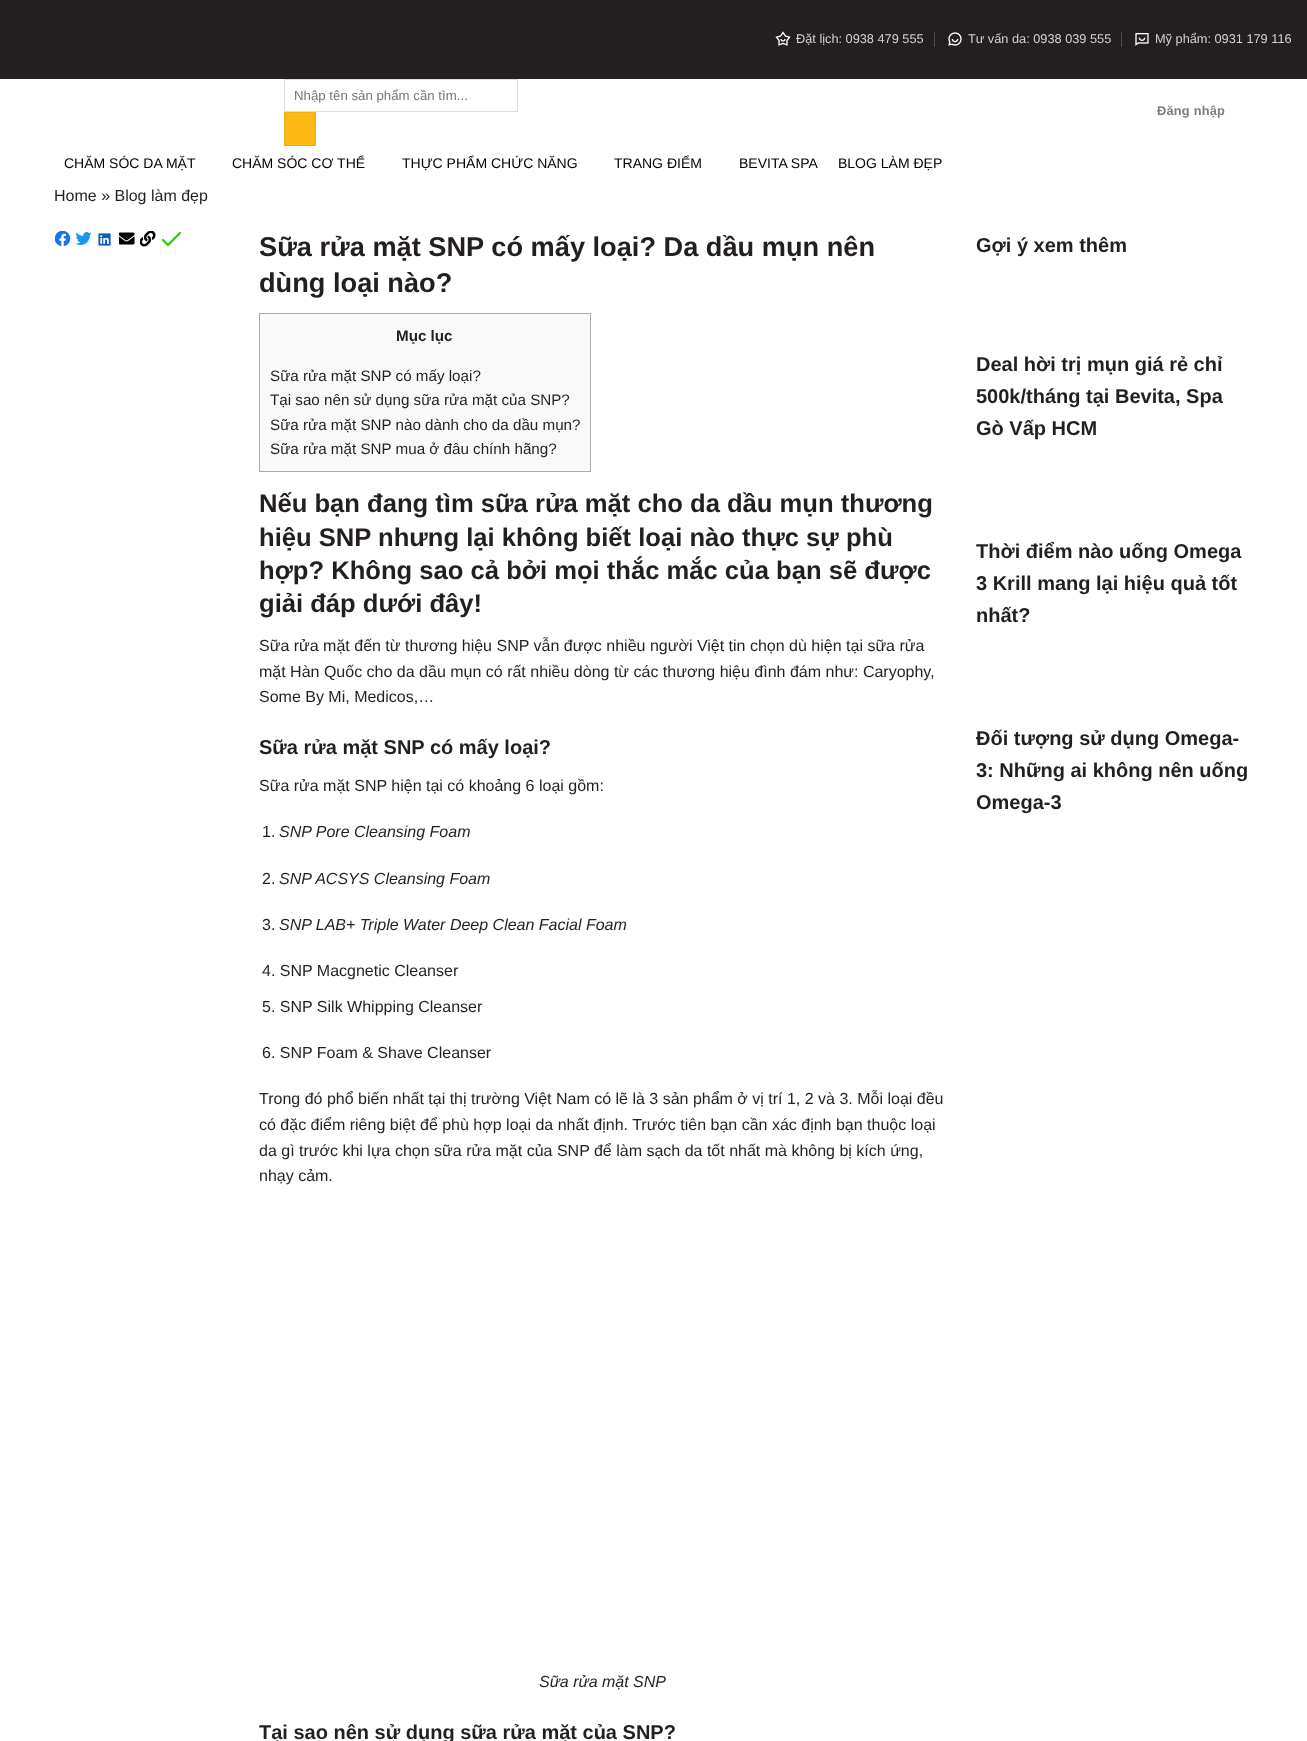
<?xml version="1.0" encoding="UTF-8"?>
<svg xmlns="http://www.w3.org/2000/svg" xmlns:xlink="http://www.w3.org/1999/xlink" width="1307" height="1741">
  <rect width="100%" height="100%" fill="#ffffff" />
  <rect width="1307" height="79" fill="#231f20" />
  <image x="775" y="31" width="16" height="15" xlink:href="image1.png" />
  <rect x="934" y="32" width="1" height="15" fill="#4f4c4d" />
  <image x="948" y="32" width="14" height="14" xlink:href="image2.png" />
  <rect x="1121" y="32" width="1" height="15" fill="#4f4c4d" />
  <image x="1135" y="33" width="14" height="13" xlink:href="image3.png" />
  <rect x="284.5" y="79.5" width="233" height="32" fill="none" stroke="#dddddd" />
  <rect x="284.5" y="112.5" width="31" height="33" fill="#fdb913" stroke="#f0b012" />
  <image x="55" y="231" width="16" height="16" xlink:href="image4.png" />
  <image x="76" y="232" width="16" height="13" xlink:href="image5.png" />
  <image x="98" y="233" width="13" height="13" xlink:href="image6.png" />
  <image x="119" y="232" width="16" height="13" xlink:href="image7.png" />
  <image x="140" y="231" width="16" height="16" xlink:href="image8.png" />
  <path d="M 163 240 l 5 5 l 12 -12" fill="none" stroke="#22cf06" stroke-width="2.2" stroke-linecap="round" stroke-linejoin="round" />
  <rect x="259.5" y="313.5" width="331" height="158" fill="#f9f9f9" stroke="#aaaaaa" />
  <text x="796" y="43" style="font-family: Liberation Sans; font-size: 12.75px; fill: #d3d2d2">Đặt lịch: 0938 479 555</text>
  <text x="968" y="43" style="font-family: Liberation Sans; font-size: 12.75px; fill: #d3d2d2">Tư vấn da: 0938 039 555</text>
  <text x="1155" y="43" style="font-family: Liberation Sans; font-size: 12.75px; fill: #d3d2d2">Mỹ phẩm: 0931 179 116</text>
  <text x="294" y="100" style="font-family: Liberation Sans; font-size: 13.25px; fill: #757575">Nhập tên sản phẩm cần tìm...</text>
  <text x="1157" y="115" style="font-family: Liberation Sans; font-size: 12.75px; font-weight: bold; letter-spacing: 0.25px; fill: #7d7d7d">Đăng nhập</text>
  <text x="64" y="168" style="font-family: Liberation Sans; font-size: 14px; fill: #000000">CHĂM SÓC DA MẶT</text>
  <text x="232" y="168" style="font-family: Liberation Sans; font-size: 14px; fill: #000000">CHĂM SÓC CƠ THỂ</text>
  <text x="402" y="168" style="font-family: Liberation Sans; font-size: 14px; fill: #000000">THỰC PHẨM CHỨC NĂNG</text>
  <text x="614" y="168" style="font-family: Liberation Sans; font-size: 14px; fill: #000000">TRANG ĐIỂM</text>
  <text x="739" y="168" style="font-family: Liberation Sans; font-size: 14px; fill: #000000">BEVITA SPA</text>
  <text x="838" y="168" style="font-family: Liberation Sans; font-size: 14px; fill: #000000">BLOG LÀM ĐẸP</text>
  <text x="54" y="201" style="font-family: Liberation Sans; font-size: 16px; fill: #231f20">Home » Blog làm đẹp</text>
  <text x="259" y="256" style="font-family: Liberation Sans; font-size: 27.2px; font-weight: bold; fill: #231f20">Sữa rửa mặt SNP có mấy loại? Da dầu mụn nên</text>
  <text x="259" y="292" style="font-family: Liberation Sans; font-size: 27.2px; font-weight: bold; fill: #231f20">dùng loại nào?</text>
  <text x="396" y="341" style="font-family: Liberation Sans; font-size: 15.2px; font-weight: bold; fill: #231f20">Mục lục</text>
  <text x="270" y="381" style="font-family: Liberation Sans; font-size: 15.2px; fill: #231f20">Sữa rửa mặt SNP có mấy loại?</text>
  <text x="270" y="405" style="font-family: Liberation Sans; font-size: 15.2px; fill: #231f20">Tại sao nên sử dụng sữa rửa mặt của SNP?</text>
  <text x="270" y="430" style="font-family: Liberation Sans; font-size: 15.2px; fill: #231f20">Sữa rửa mặt SNP nào dành cho da dầu mụn?</text>
  <text x="270" y="454" style="font-family: Liberation Sans; font-size: 15.2px; fill: #231f20">Sữa rửa mặt SNP mua ở đâu chính hãng?</text>
  <text x="259" y="512" style="font-family: Liberation Sans; font-size: 25.6px; font-weight: bold; fill: #231f20">Nếu bạn đang tìm sữa rửa mặt cho da dầu mụn thương</text>
  <text x="259" y="546" style="font-family: Liberation Sans; font-size: 25.6px; font-weight: bold; fill: #231f20">hiệu SNP nhưng lại không biết loại nào thực sự phù</text>
  <text x="259" y="579" style="font-family: Liberation Sans; font-size: 25.6px; font-weight: bold; fill: #231f20">hợp? Không sao cả bởi mọi thắc mắc của bạn sẽ được</text>
  <text x="259" y="612" style="font-family: Liberation Sans; font-size: 25.6px; font-weight: bold; fill: #231f20">giải đáp dưới đây!</text>
  <text x="259" y="651" style="font-family: Liberation Sans; font-size: 16px; fill: #231f20">Sữa rửa mặt đến từ thương hiệu SNP vẫn được nhiều người Việt tin chọn dù hiện tại sữa rửa</text>
  <text x="259" y="677" style="font-family: Liberation Sans; font-size: 16px; fill: #231f20">mặt Hàn Quốc cho da dầu mụn có rất nhiều dòng từ các thương hiệu đình đám như: Caryophy,</text>
  <text x="259" y="702" style="font-family: Liberation Sans; font-size: 16px; fill: #231f20">Some By Mi, Medicos,…</text>
  <text x="259" y="754" style="font-family: Liberation Sans; font-size: 20px; font-weight: bold; fill: #231f20">Sữa rửa mặt SNP có mấy loại?</text>
  <text x="259" y="791" style="font-family: Liberation Sans; font-size: 16px; fill: #231f20">Sữa rửa mặt SNP hiện tại có khoảng 6 loại gồm:</text>
  <text x="262" y="837" style="font-family: Liberation Sans; font-size: 16px; fill: #231f20">1.</text>
  <text x="279" y="837" style="font-family: Liberation Sans; font-size: 16px; font-style: italic; fill: #231f20">SNP Pore Cleansing Foam</text>
  <text x="262" y="884" style="font-family: Liberation Sans; font-size: 16px; fill: #231f20">2.</text>
  <text x="279" y="884" style="font-family: Liberation Sans; font-size: 16px; font-style: italic; fill: #231f20">SNP ACSYS Cleansing Foam</text>
  <text x="262" y="930" style="font-family: Liberation Sans; font-size: 16px; fill: #231f20">3.</text>
  <text x="279" y="930" style="font-family: Liberation Sans; font-size: 16px; font-style: italic; fill: #231f20">SNP LAB+ Triple Water Deep Clean Facial Foam</text>
  <text x="262" y="976" style="font-family: Liberation Sans; font-size: 16px; fill: #231f20">4. SNP Macgnetic Cleanser</text>
  <text x="262" y="1012" style="font-family: Liberation Sans; font-size: 16px; fill: #231f20">5. SNP Silk Whipping Cleanser</text>
  <text x="262" y="1058" style="font-family: Liberation Sans; font-size: 16px; fill: #231f20">6. SNP Foam &amp; Shave Cleanser</text>
  <text x="259" y="1104" style="font-family: Liberation Sans; font-size: 16px; fill: #231f20">Trong đó phổ biến nhất tại thị trường Việt Nam có lẽ là 3 sản phẩm ở vị trí 1, 2 và 3. Mỗi loại đều</text>
  <text x="259" y="1130" style="font-family: Liberation Sans; font-size: 16px; fill: #231f20">có đặc điểm riêng biệt để phù hợp loại da nhất định. Trước tiên bạn cần xác định bạn thuộc loại</text>
  <text x="259" y="1156" style="font-family: Liberation Sans; font-size: 16px; fill: #231f20">da gì trước khi lựa chọn sữa rửa mặt của SNP để làm sạch da tốt nhất mà không bị kích ứng,</text>
  <text x="259" y="1181" style="font-family: Liberation Sans; font-size: 16px; fill: #231f20">nhạy cảm.</text>
  <text x="539" y="1687" style="font-family: Liberation Sans; font-size: 16px; font-style: italic; fill: #231f20">Sữa rửa mặt SNP</text>
  <text x="259" y="1739" style="font-family: Liberation Sans; font-size: 20px; font-weight: bold; fill: #231f20">Tại sao nên sử dụng sữa rửa mặt của SNP?</text>
  <text x="976" y="252" style="font-family: Liberation Sans; font-size: 20px; font-weight: bold; fill: #231f20">Gợi ý xem thêm</text>
  <text x="976" y="371" style="font-family: Liberation Sans; font-size: 20px; font-weight: bold; fill: #231f20">Deal hời trị mụn giá rẻ chỉ</text>
  <text x="976" y="403" style="font-family: Liberation Sans; font-size: 20px; font-weight: bold; fill: #231f20">500k/tháng tại Bevita, Spa</text>
  <text x="976" y="435" style="font-family: Liberation Sans; font-size: 20px; font-weight: bold; fill: #231f20">Gò Vấp HCM</text>
  <text x="976" y="558" style="font-family: Liberation Sans; font-size: 20px; font-weight: bold; fill: #231f20">Thời điểm nào uống Omega</text>
  <text x="976" y="590" style="font-family: Liberation Sans; font-size: 20px; font-weight: bold; fill: #231f20">3 Krill mang lại hiệu quả tốt</text>
  <text x="976" y="622" style="font-family: Liberation Sans; font-size: 20px; font-weight: bold; fill: #231f20">nhất?</text>
  <text x="976" y="745" style="font-family: Liberation Sans; font-size: 20px; font-weight: bold; fill: #231f20">Đối tượng sử dụng Omega-</text>
  <text x="976" y="777" style="font-family: Liberation Sans; font-size: 20px; font-weight: bold; fill: #231f20">3: Những ai không nên uống</text>
  <text x="976" y="809" style="font-family: Liberation Sans; font-size: 20px; font-weight: bold; fill: #231f20">Omega-3</text>
</svg>
